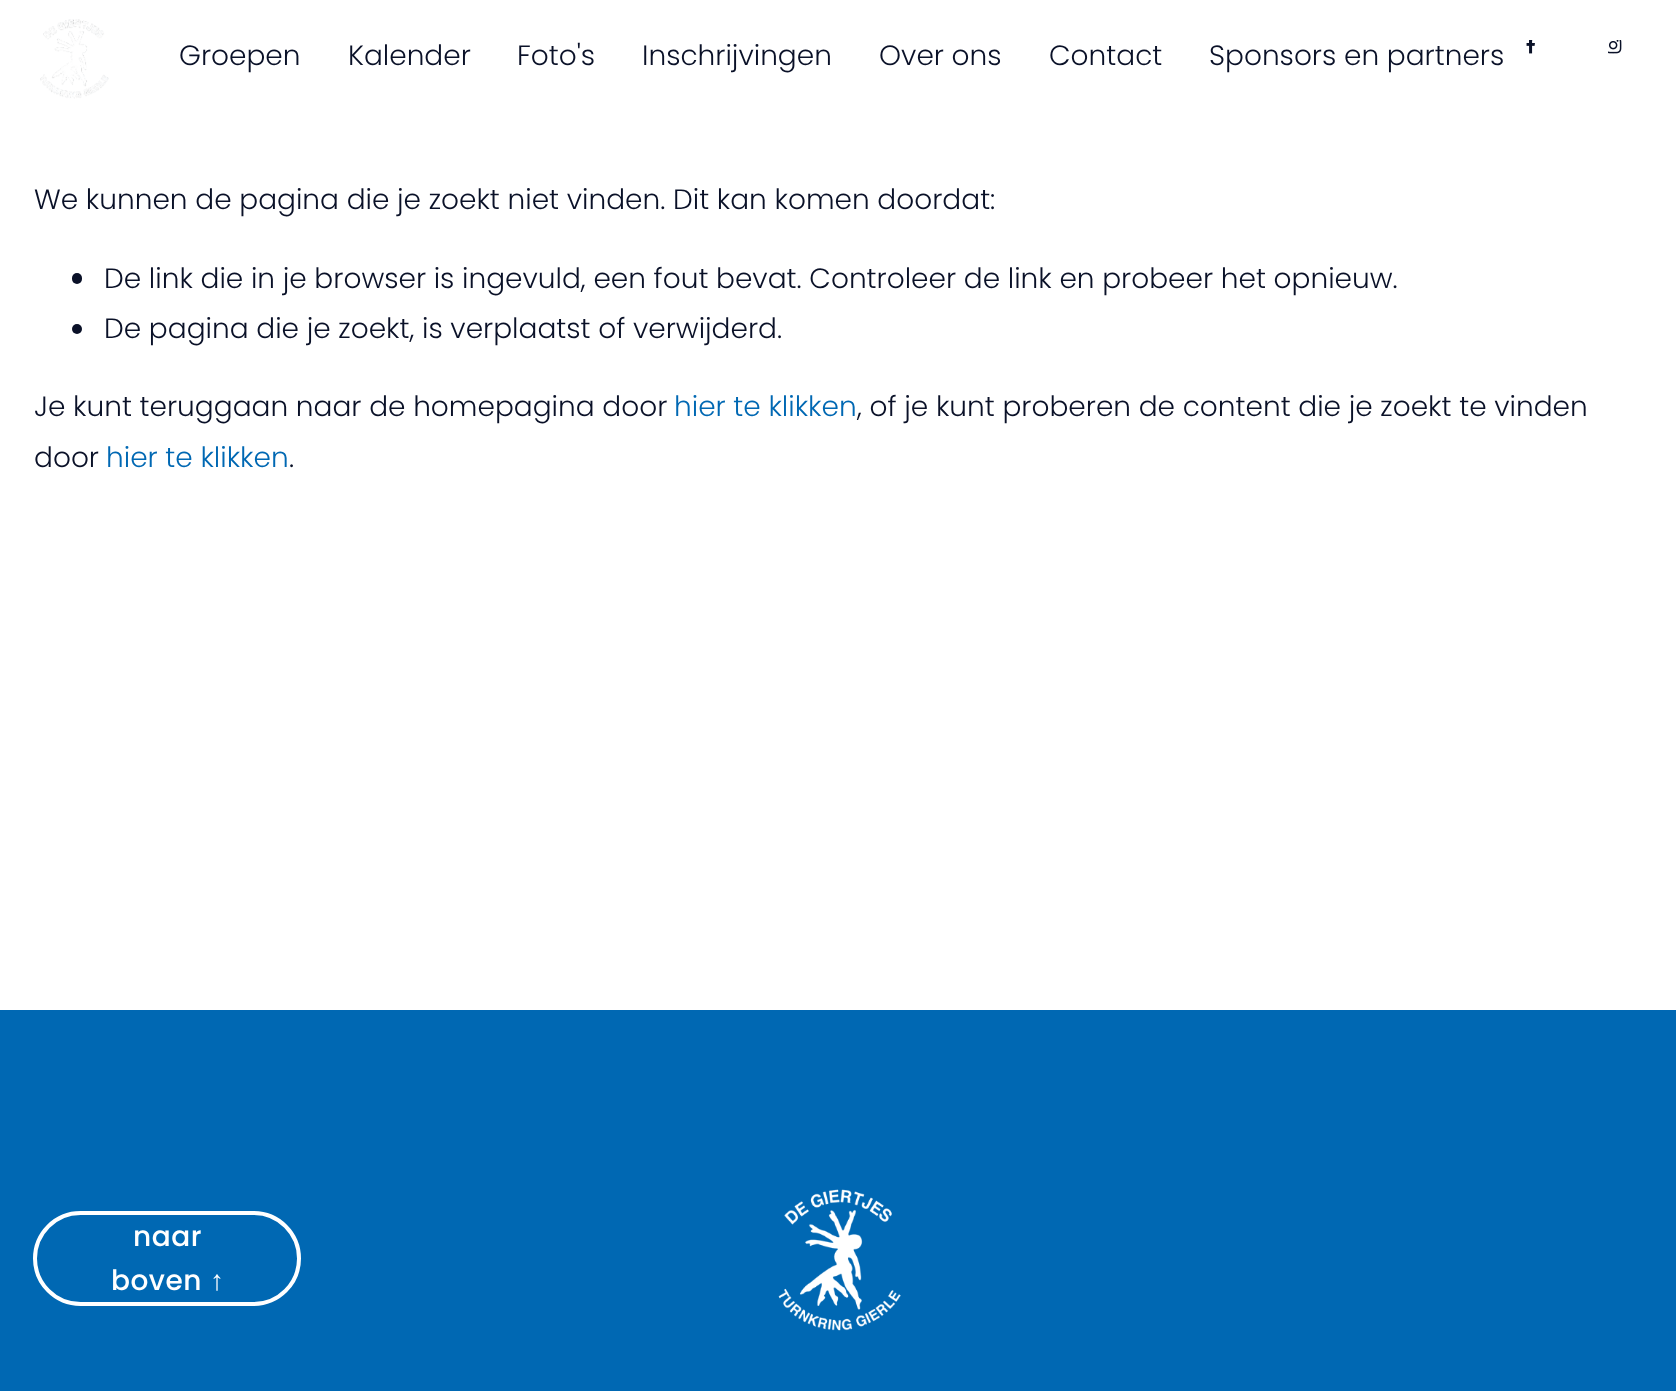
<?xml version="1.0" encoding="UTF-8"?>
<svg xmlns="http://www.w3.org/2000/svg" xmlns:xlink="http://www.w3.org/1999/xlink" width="1676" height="1391">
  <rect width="100%" height="100%" fill="#ffffff" />
  <image x="40" y="19" width="69" height="80" xlink:href="image1.png" />
  <image x="1526" y="40" width="9" height="14" xlink:href="image2.png" />
  <image x="1608" y="40" width="14" height="14" xlink:href="image3.png" />
  <rect x="72" y="273" width="10" height="11" rx="5" fill="#0a1128" />
  <circle cx="77" cy="329" r="5" fill="#0a1128" />
  <rect y="1010" width="1676" height="381" fill="#0068b3" />
  <rect x="35" y="1213" width="264" height="91" rx="45.5" fill="none" stroke="#ffffff" stroke-width="4" />
  <image x="778" y="1189" width="123" height="142" xlink:href="image4.png" />
  <text x="179" y="65" style="font-family: Poppins; font-size: 28px; font-weight: 300; fill: #0a1128">Groepen</text>
  <text x="348" y="65" style="font-family: Poppins; font-size: 28px; font-weight: 300; fill: #0a1128">Kalender</text>
  <text x="517" y="65" style="font-family: Poppins; font-size: 28px; font-weight: 300; fill: #0a1128">Foto's</text>
  <text x="642" y="65" style="font-family: Poppins; font-size: 28px; font-weight: 300; fill: #0a1128">Inschrijvingen</text>
  <text x="879" y="65" style="font-family: Poppins; font-size: 28px; font-weight: 300; fill: #0a1128">Over ons</text>
  <text x="1049" y="65" style="font-family: Poppins; font-size: 28px; font-weight: 300; fill: #0a1128">Contact</text>
  <text x="1209" y="65" style="font-family: Poppins; font-size: 28px; font-weight: 300; fill: #0a1128">Sponsors en partners</text>
  <text x="34" y="209" style="font-family: Poppins; font-size: 28px; font-weight: 300; fill: #0a1128">We kunnen de pagina die je zoekt niet vinden. Dit kan komen doordat:</text>
  <text x="104" y="288" style="font-family: Poppins; font-size: 28px; font-weight: 300; fill: #0a1128">De link die in je browser is ingevuld, een fout bevat. Controleer de link en probeer het opnieuw.</text>
  <text x="104" y="338" style="font-family: Poppins; font-size: 28px; font-weight: 300; fill: #0a1128">De pagina die je zoekt, is verplaatst of verwijderd.</text>
  <text x="34" y="416" style="font-family: Poppins; font-size: 28px; font-weight: 300; fill: #0a1128">Je kunt teruggaan naar de homepagina door</text>
  <text x="674" y="416" style="font-family: Poppins; font-size: 28px; font-weight: 300; fill: #0068b3">hier te klikken</text>
  <text x="857" y="416" style="font-family: Poppins; font-size: 28px; font-weight: 300; fill: #0a1128">, of je kunt proberen de content die je zoekt te vinden</text>
  <text x="34" y="467" style="font-family: Poppins; font-size: 28px; font-weight: 300; fill: #0a1128">door</text>
  <text x="106" y="467" style="font-family: Poppins; font-size: 28px; font-weight: 300; fill: #0068b3">hier te klikken</text>
  <text x="289" y="467" style="font-family: Poppins; font-size: 28px; font-weight: 300; fill: #0a1128">.</text>
  <text x="133" y="1246" style="font-family: Poppins; font-size: 28px; font-weight: 500; letter-spacing: 0.5px; fill: #ffffff">naar</text>
  <text x="111" y="1290" style="font-family: Poppins; font-size: 28px; font-weight: 500; letter-spacing: 0.5px; fill: #ffffff">boven</text>
  <text x="210" y="1290" style="font-family: Liberation Serif; font-size: 28px; letter-spacing: 0.5px; fill: #ffffff">↑</text>
</svg>
